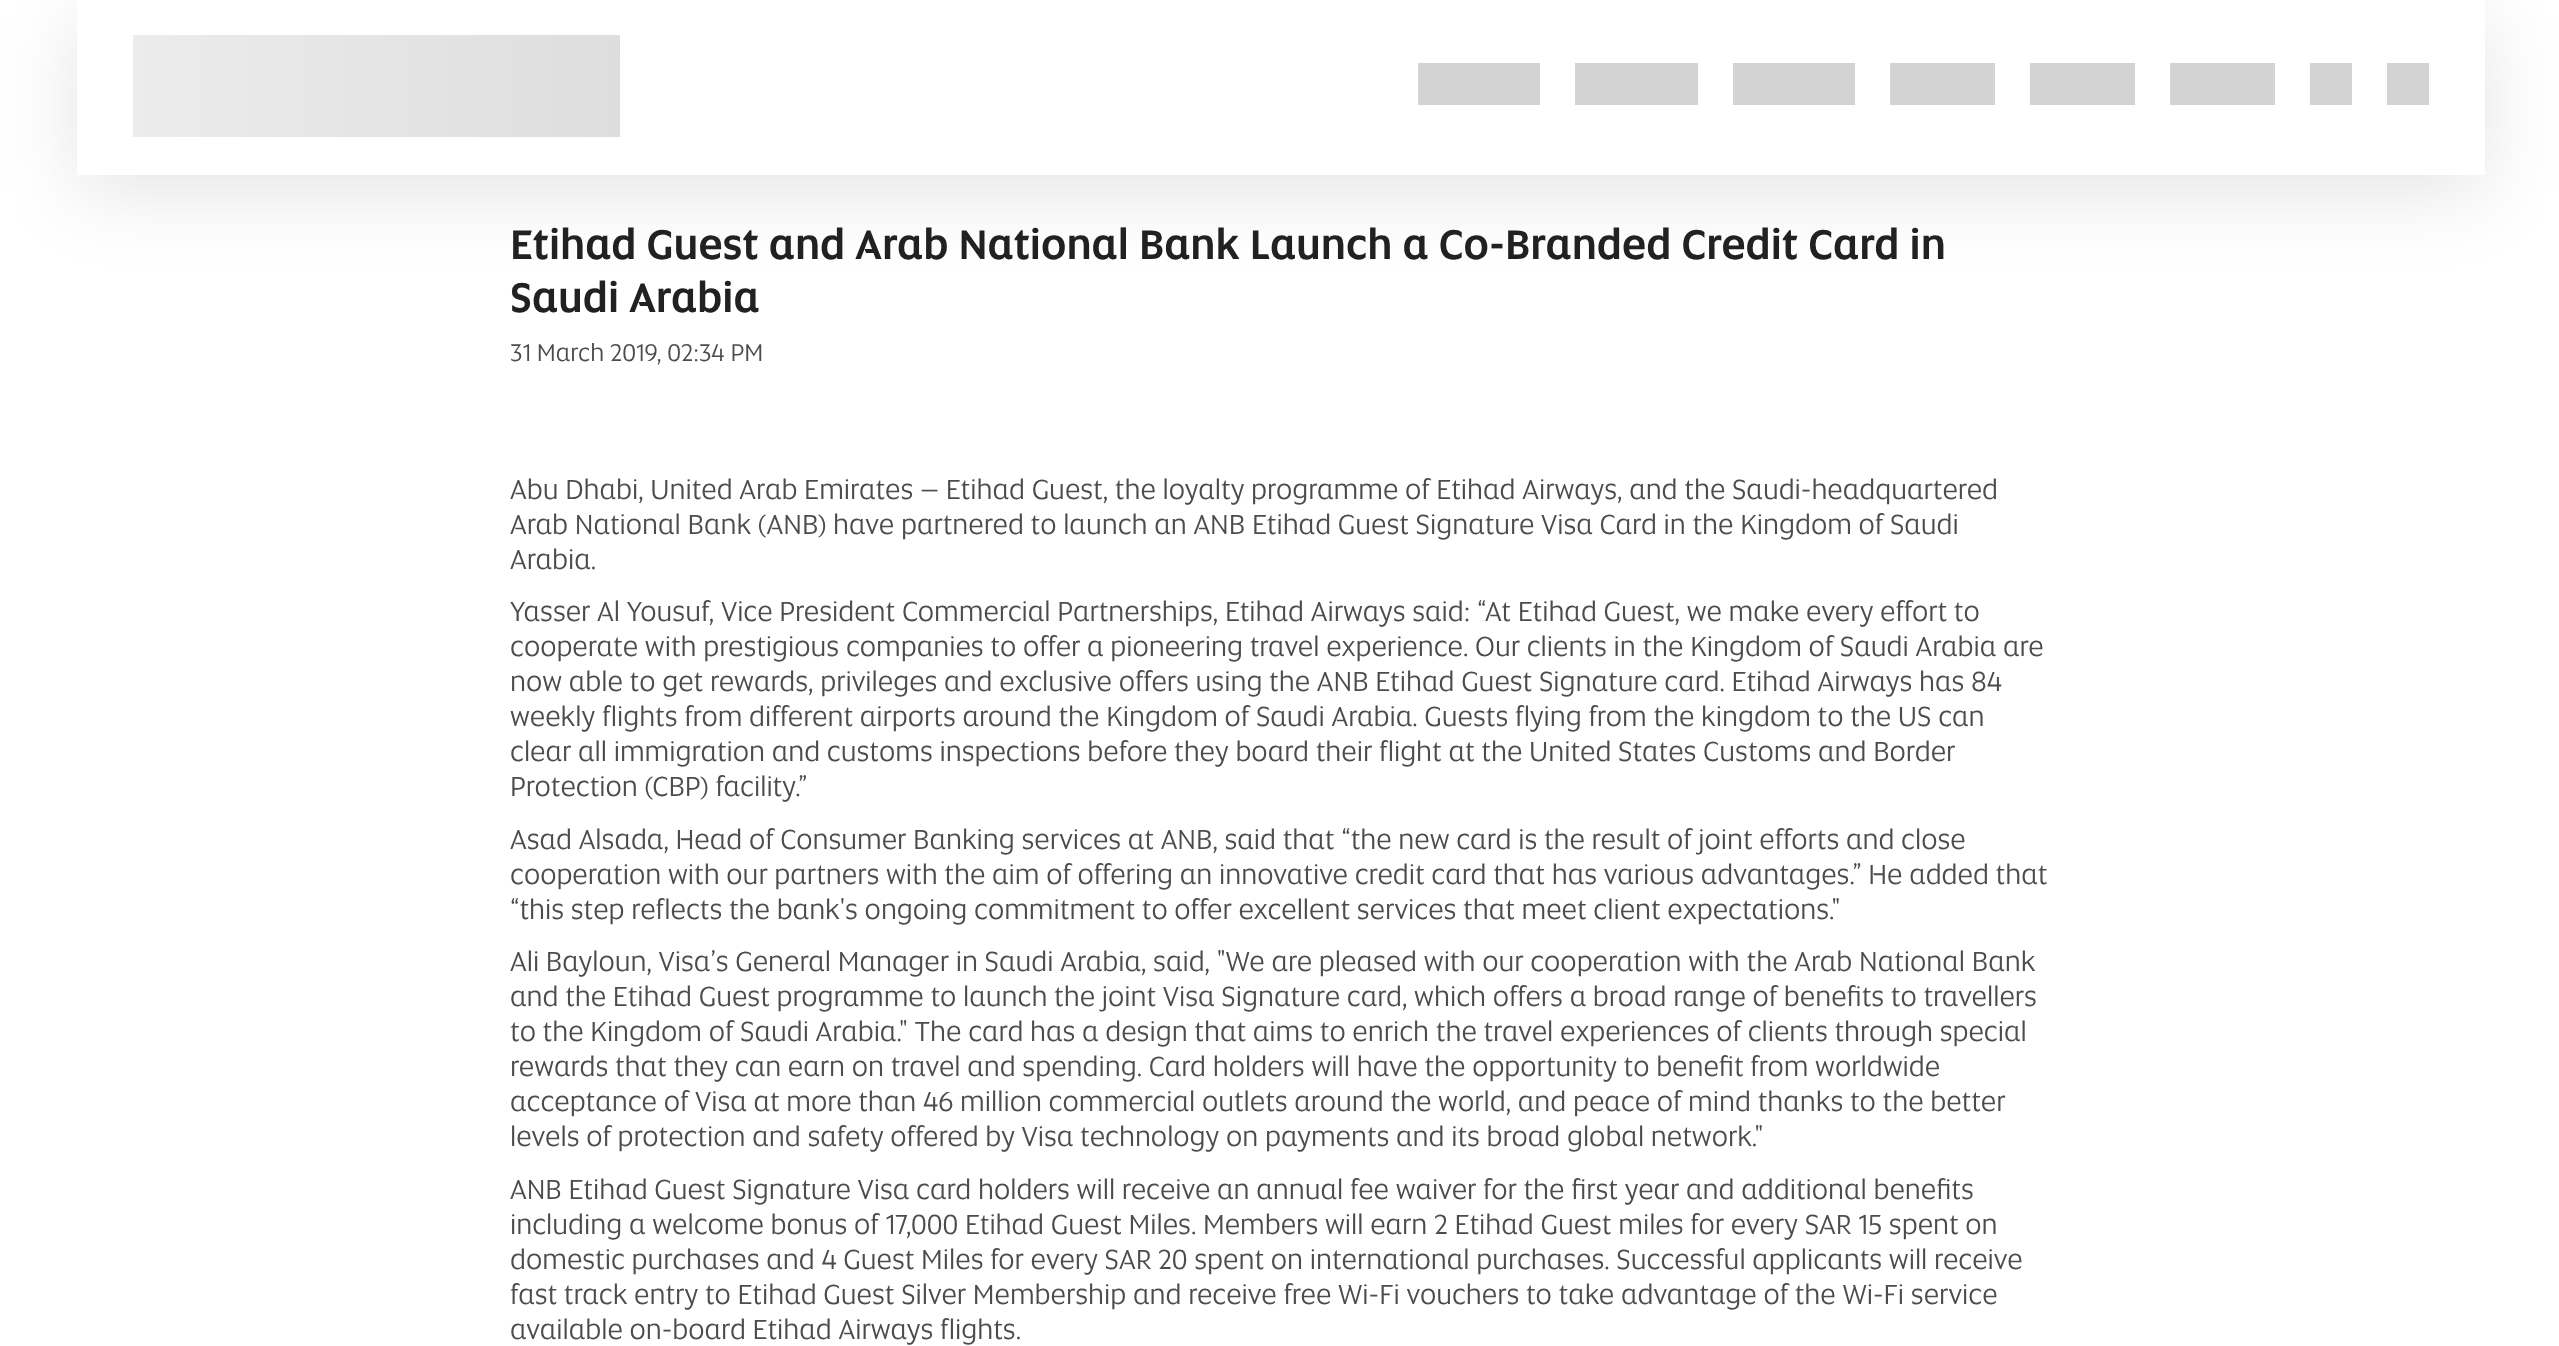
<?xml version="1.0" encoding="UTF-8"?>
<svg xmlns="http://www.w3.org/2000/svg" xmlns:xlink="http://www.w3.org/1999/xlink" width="2559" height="1346">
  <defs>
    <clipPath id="clip1"><path d="M 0 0 h 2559 v 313 h -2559 z m 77 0 h 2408 v 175 h -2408 z" clip-rule="evenodd" /></clipPath>
    <radialGradient id="g1" gradientUnits="userSpaceOnUse" cx="2408" cy="84" r="42"><stop offset="0.99" stop-color="#d3d3d3" /><stop offset="0.99" stop-color="#ffffff" /></radialGradient>
    <linearGradient id="g2" gradientUnits="userSpaceOnUse" x1="-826" y1="88" x2="980" y2="87"><stop offset="0" stop-color="#ffffff" stop-opacity="0" /><stop offset="0.5" stop-color="#ffffff" stop-opacity="0.6" /><stop offset="1" stop-color="#ffffff" stop-opacity="0" /></linearGradient>
  </defs>
  <rect width="100%" height="100%" fill="#ffffff" />
  <g clip-path="url(#clip1)">
    <rect x="77" y="18" width="2408" height="175" fill="#000000" fill-opacity="0.1" filter="blur(39.5px)" />
  </g>
  <rect x="133" y="35" width="487" height="102" fill="#d3d3d3" />
  <rect x="1418" y="63" width="122" height="42" fill="#d3d3d3" />
  <rect x="1575" y="63" width="123" height="42" fill="#d3d3d3" />
  <rect x="1733" y="63" width="122" height="42" fill="#d3d3d3" />
  <rect x="1890" y="63" width="105" height="42" fill="#d3d3d3" />
  <rect x="2030" y="63" width="105" height="42" fill="#d3d3d3" />
  <rect x="2170" y="63" width="105" height="42" fill="#d3d3d3" />
  <rect x="2310" y="63" width="42" height="42" fill="#d3d3d3" />
  <rect x="2387" y="63" width="42" height="42" fill="url(#g1)" />
  <rect x="133" y="35" width="487" height="102" fill="url(#g2)" />
  <text x="510" y="259" style="font-family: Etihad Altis; font-size: 42px; font-weight: 500; fill: #212121">Etihad Guest and Arab National Bank Launch a Co-Branded Credit Card in</text>
  <text x="510" y="312" style="font-family: Etihad Altis; font-size: 42px; font-weight: 500; fill: #212121">Saudi Arabia</text>
  <text x="510" y="361" style="font-family: Etihad Altis; font-size: 24.5px; fill: #4e4c4a">31 March 2019, 02:34 PM</text>
  <text x="510" y="499" style="font-family: Etihad Altis; font-size: 28px; fill: #4e4c4a">Abu Dhabi, United Arab Emirates – Etihad Guest, the loyalty programme of Etihad Airways, and the Saudi-headquartered</text>
  <text x="510" y="534" style="font-family: Etihad Altis; font-size: 28px; fill: #4e4c4a">Arab National Bank (ANB) have partnered to launch an ANB Etihad Guest Signature Visa Card in the Kingdom of Saudi</text>
  <text x="510" y="569" style="font-family: Etihad Altis; font-size: 28px; fill: #4e4c4a">Arabia.</text>
  <text x="510" y="621" style="font-family: Etihad Altis; font-size: 28px; fill: #4e4c4a">Yasser Al Yousuf, Vice President Commercial Partnerships, Etihad Airways said: “At Etihad Guest, we make every effort to</text>
  <text x="510" y="656" style="font-family: Etihad Altis; font-size: 28px; fill: #4e4c4a">cooperate with prestigious companies to offer a pioneering travel experience. Our clients in the Kingdom of Saudi Arabia are</text>
  <text x="510" y="691" style="font-family: Etihad Altis; font-size: 28px; fill: #4e4c4a">now able to get rewards, privileges and exclusive offers using the ANB Etihad Guest Signature card. Etihad Airways has 84</text>
  <text x="510" y="726" style="font-family: Etihad Altis; font-size: 28px; fill: #4e4c4a">weekly flights from different airports around the Kingdom of Saudi Arabia. Guests flying from the kingdom to the US can</text>
  <text x="510" y="761" style="font-family: Etihad Altis; font-size: 28px; fill: #4e4c4a">clear all immigration and customs inspections before they board their flight at the United States Customs and Border</text>
  <text x="510" y="796" style="font-family: Etihad Altis; font-size: 28px; fill: #4e4c4a">Protection (CBP) facility.”</text>
  <text x="510" y="849" style="font-family: Etihad Altis; font-size: 28px; fill: #4e4c4a">Asad Alsada, Head of Consumer Banking services at ANB, said that “the new card is the result of joint efforts and close</text>
  <text x="510" y="884" style="font-family: Etihad Altis; font-size: 28px; fill: #4e4c4a">cooperation with our partners with the aim of offering an innovative credit card that has various advantages.” He added that</text>
  <text x="510" y="919" style="font-family: Etihad Altis; font-size: 28px; fill: #4e4c4a">“this step reflects the bank's ongoing commitment to offer excellent services that meet client expectations."</text>
  <text x="510" y="971" style="font-family: Etihad Altis; font-size: 28px; fill: #4e4c4a">Ali Bayloun, Visa’s General Manager in Saudi Arabia, said, "We are pleased with our cooperation with the Arab National Bank</text>
  <text x="510" y="1006" style="font-family: Etihad Altis; font-size: 28px; fill: #4e4c4a">and the Etihad Guest programme to launch the joint Visa Signature card, which offers a broad range of benefits to travellers</text>
  <text x="510" y="1041" style="font-family: Etihad Altis; font-size: 28px; fill: #4e4c4a">to the Kingdom of Saudi Arabia." The card has a design that aims to enrich the travel experiences of clients through special</text>
  <text x="510" y="1076" style="font-family: Etihad Altis; font-size: 28px; fill: #4e4c4a">rewards that they can earn on travel and spending. Card holders will have the opportunity to benefit from worldwide</text>
  <text x="510" y="1111" style="font-family: Etihad Altis; font-size: 28px; fill: #4e4c4a">acceptance of Visa at more than 46 million commercial outlets around the world, and peace of mind thanks to the better</text>
  <text x="510" y="1146" style="font-family: Etihad Altis; font-size: 28px; fill: #4e4c4a">levels of protection and safety offered by Visa technology on payments and its broad global network."</text>
  <text x="510" y="1199" style="font-family: Etihad Altis; font-size: 28px; fill: #4e4c4a">ANB Etihad Guest Signature Visa card holders will receive an annual fee waiver for the first year and additional benefits</text>
  <text x="510" y="1234" style="font-family: Etihad Altis; font-size: 28px; fill: #4e4c4a">including a welcome bonus of 17,000 Etihad Guest Miles. Members will earn 2 Etihad Guest miles for every SAR 15 spent on</text>
  <text x="510" y="1269" style="font-family: Etihad Altis; font-size: 28px; fill: #4e4c4a">domestic purchases and 4 Guest Miles for every SAR 20 spent on international purchases. Successful applicants will receive</text>
  <text x="510" y="1304" style="font-family: Etihad Altis; font-size: 28px; fill: #4e4c4a">fast track entry to Etihad Guest Silver Membership and receive free Wi-Fi vouchers to take advantage of the Wi-Fi service</text>
  <text x="510" y="1339" style="font-family: Etihad Altis; font-size: 28px; fill: #4e4c4a">available on-board Etihad Airways flights.</text>
</svg>
